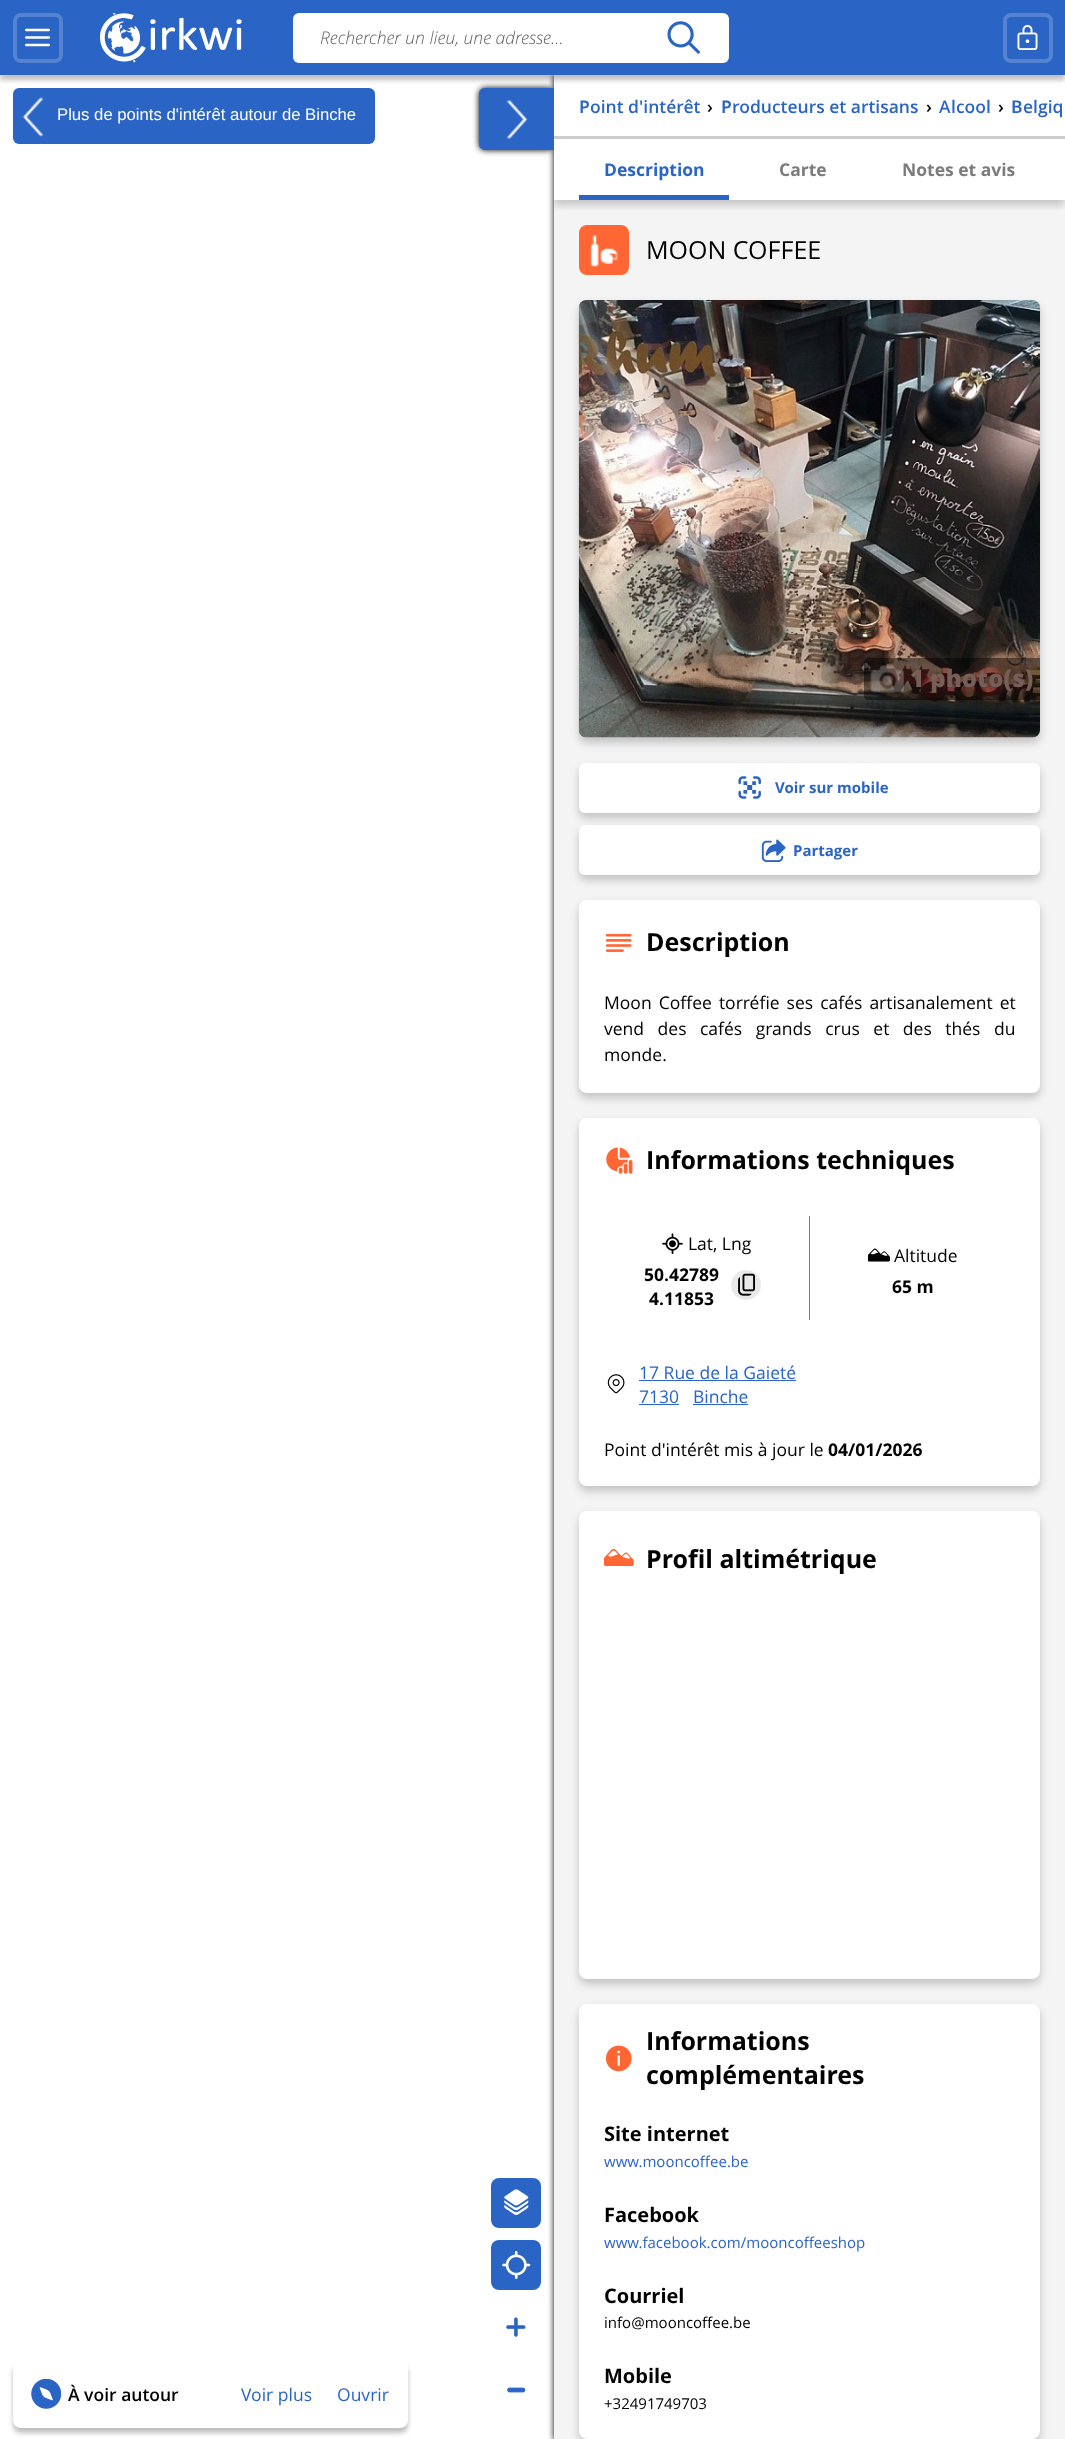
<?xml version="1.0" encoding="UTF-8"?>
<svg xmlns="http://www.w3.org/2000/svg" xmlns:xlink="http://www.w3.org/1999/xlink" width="1065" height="2439">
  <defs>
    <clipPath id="clip1"><rect x="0" y="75" width="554" height="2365" /></clipPath>
    <clipPath id="clip2"><rect x="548" y="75" width="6" height="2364" /></clipPath>
    <clipPath id="clip3"><rect x="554" y="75" width="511" height="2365" /></clipPath>
    <clipPath id="clip4"><rect x="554" y="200" width="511" height="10" /></clipPath>
  </defs>
  <rect width="100%" height="100%" fill="#ffffff" />
  <rect x="13" y="88" width="362" height="56" rx="6" fill="#2a64c5" />
  <g clip-path="url(#clip1)">
    <rect x="479" y="88" width="75" height="62" rx="6" fill="#000000" filter="blur(3px)" />
  </g>
  <g clip-path="url(#clip2)">
    <rect x="554" y="75" width="511" height="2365" fill="#000000" filter="blur(3px)" />
  </g>
  <path d="M 485 88 h 69 v 62 h -69 c -3.5 0 -6 -2.5 -6 -6 v -50 c 0 -3.5 2.5 -6 6 -6 z" fill="#2a64c5" />
  <rect y="5" width="1065" height="75" fill="#000000" fill-opacity="0.25" filter="blur(2.5px)" />
  <rect x="554" y="200" width="511" height="2239" fill="#f4f4f4" />
  <g clip-path="url(#clip3)">
    <g clip-path="url(#clip4)">
      <rect x="554" y="80" width="511" height="125" fill="#000000" fill-opacity="0.2" filter="blur(4px)" />
    </g>
  </g>
  <rect width="1065" height="75" fill="#2a64c5" />
  <rect x="15" y="15" width="46" height="46" rx="6" fill="none" stroke="#5583d1" stroke-width="4" />
  <image x="25" y="28" width="25" height="19" xlink:href="image1.png" />
  <image x="100" y="13" width="142" height="50" xlink:href="image2.png" />
  <rect x="293" y="13" width="436" height="50" rx="6" fill="#ffffff" />
  <image x="667" y="21" width="33" height="33" xlink:href="image3.png" />
  <rect x="1005" y="15" width="46" height="46" rx="6" fill="none" stroke="#5583d1" stroke-width="4" />
  <image x="1017" y="25" width="21" height="25" xlink:href="image4.png" />
  <image x="22" y="97" width="22" height="40" xlink:href="image5.png" />
  <image x="506" y="99" width="22" height="40" xlink:href="image6.png" />
  <rect x="13" y="2365" width="395" height="68" rx="8" fill="#000000" fill-opacity="0.25" filter="blur(2.5px)" />
  <rect x="13" y="2360" width="395" height="68" rx="8" fill="#ffffff" />
  <image x="31" y="2379" width="30" height="30" xlink:href="image7.png" />
  <rect x="491" y="2178" width="50" height="50" rx="8" fill="#2a64c5" />
  <image x="504" y="2189" width="25" height="26" xlink:href="image8.png" />
  <rect x="491" y="2240" width="50" height="50" rx="8" fill="#2a64c5" />
  <image x="502" y="2251" width="29" height="28" xlink:href="image9.png" />
  <image x="506" y="2317" width="20" height="20" xlink:href="image10.png" />
  <image x="507" y="2387" width="19" height="6" xlink:href="image11.png" />
  <rect x="554" y="136" width="511" height="3" fill="#cccccc" />
  <rect x="579" y="195" width="150" height="5" fill="#2a64c5" />
  <rect x="579" y="225" width="50" height="50" rx="8" fill="#ff6633" />
  <image x="590" y="234" width="28" height="33" xlink:href="image12.png" />
  <rect x="579" y="305" width="461" height="438" rx="8" fill="#000000" fill-opacity="0.2" filter="blur(4px)" />
  <image x="578" y="300" width="462" height="438" xlink:href="image13.png" />
  <path d="M 868 658 h 172 v 42 h -172 c -2 0 -4 -2 -4 -4 v -34 c 0 -2 2 -4 4 -4 z" fill="#000000" fill-opacity="0.45" />
  <image x="870" y="665" width="34" height="28" xlink:href="image14.png" />
  <rect x="579" y="768" width="461" height="50" rx="6" fill="#000000" fill-opacity="0.2" filter="blur(4px)" />
  <rect x="579" y="763" width="461" height="50" rx="6" fill="#ffffff" />
  <image x="738" y="776" width="23" height="23" xlink:href="image15.png" />
  <rect x="579" y="830" width="461" height="50" rx="6" fill="#000000" fill-opacity="0.2" filter="blur(4px)" />
  <rect x="579" y="825" width="461" height="50" rx="6" fill="#ffffff" />
  <image x="761" y="839" width="25" height="23" xlink:href="image16.png" />
  <rect x="579" y="905" width="461" height="193" rx="8" fill="#000000" fill-opacity="0.2" filter="blur(4px)" />
  <rect x="579" y="900" width="461" height="193" rx="8" fill="#ffffff" />
  <image x="605" y="933" width="27" height="19" xlink:href="image17.png" />
  <rect x="579" y="1123" width="461" height="368" rx="8" fill="#000000" fill-opacity="0.2" filter="blur(4px)" />
  <rect x="579" y="1118" width="461" height="368" rx="8" fill="#ffffff" />
  <image x="606" y="1147" width="27" height="27" xlink:href="image18.png" />
  <image x="662" y="1233" width="21" height="21" xlink:href="image19.png" />
  <circle cx="746" cy="1285" r="15" fill="#e9e9e9" />
  <image x="738" y="1273" width="17" height="23" xlink:href="image20.png" />
  <rect x="809" y="1216" width="1" height="104" fill="#7e7e7e" />
  <image x="868" y="1248" width="22" height="14" xlink:href="image21.png" />
  <image x="607" y="1374" width="18" height="20" xlink:href="image22.png" />
  <rect x="639" y="1380" width="157" height="1" fill="#2a64c5" />
  <rect x="639" y="1404" width="40" height="1" fill="#2a64c5" />
  <rect x="693" y="1404" width="55" height="1" fill="#2a64c5" />
  <rect x="579" y="1516" width="461" height="468" rx="8" fill="#000000" fill-opacity="0.2" filter="blur(4px)" />
  <rect x="579" y="1511" width="461" height="468" rx="8" fill="#ffffff" />
  <image x="604" y="1549" width="30" height="17" xlink:href="image23.png" />
  <rect x="579" y="2009" width="461" height="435" rx="8" fill="#000000" fill-opacity="0.2" filter="blur(4px)" />
  <rect x="579" y="2004" width="461" height="435" rx="8" fill="#ffffff" />
  <image x="605" y="2045" width="27" height="27" xlink:href="image24.png" />
  <text x="320" y="44" style="font-family: Open Sans; font-size: 17.5px; font-weight: 300; font-style: italic; fill: #616161">Rechercher un lieu, une adresse...</text>
  <text x="57" y="120" style="font-family: Liberation Sans; font-size: 16.7px; fill: #ffffff">Plus de points d'intérêt autour de Binche</text>
  <text x="68" y="2401" style="font-family: Open Sans; font-size: 17.5px; font-weight: 600; fill: #000000">À voir autour</text>
  <text x="241" y="2401" style="font-family: Open Sans; font-size: 17.5px; fill: #2a64c5">Voir plus</text>
  <text x="337" y="2401" style="font-family: Open Sans; font-size: 17.5px; fill: #2a64c5">Ouvrir</text>
  <text x="579" y="113" style="font-family: Noto Sans; font-size: 17.5px; font-weight: 600; fill: #2a64c5">P</text>
  <text x="590" y="113" style="font-family: Open Sans; font-size: 17.5px; font-weight: 600; fill: #2a64c5">oint d'intérêt</text>
  <text x="707" y="113" style="font-family: Open Sans; font-size: 17.5px; font-weight: 600; fill: #000000">›</text>
  <text x="721" y="113" style="font-family: Noto Sans; font-size: 17.5px; font-weight: 600; fill: #2a64c5">P</text>
  <text x="732" y="113" style="font-family: Open Sans; font-size: 17.5px; font-weight: 600; fill: #2a64c5">roducteurs et artisans</text>
  <text x="926" y="113" style="font-family: Open Sans; font-size: 17.5px; font-weight: 600; fill: #000000">›</text>
  <text x="939" y="113" style="font-family: Noto Sans; font-size: 17.5px; font-weight: 500; fill: #2a64c5">A</text>
  <text x="951" y="113" style="font-family: Open Sans; font-size: 17.5px; font-weight: 600; fill: #2a64c5">lcool</text>
  <text x="998" y="113" style="font-family: Open Sans; font-size: 17.5px; font-weight: 600; fill: #000000">›</text>
  <text x="1011" y="113" style="font-family: Noto Sans; font-size: 17.5px; font-weight: 600; fill: #2a64c5">B</text>
  <text x="1023" y="113" style="font-family: Open Sans; font-size: 17.5px; font-weight: 600; fill: #2a64c5">elgiq</text>
  <text x="604" y="176" style="font-family: Open Sans; font-size: 17.5px; font-weight: bold; fill: #2a64c5">Description</text>
  <text x="779" y="176" style="font-family: Open Sans; font-size: 17.5px; font-weight: bold; fill: #7c7c7c">Carte</text>
  <text x="902" y="176" style="font-family: Open Sans; font-size: 17.5px; font-weight: bold; fill: #7c7c7c">Notes et avis</text>
  <text x="646" y="259" style="font-family: Open Sans; font-size: 25px; fill: #000000">MOON COFFEE</text>
  <text x="910" y="687" style="font-family: Open Sans; font-size: 24px; font-weight: 800; fill: #755f58">1 photo(s)</text>
  <text x="775" y="793" style="font-family: Open Sans; font-size: 15px; font-weight: bold; fill: #2a64c5">Voir sur mobile</text>
  <text x="793" y="856" style="font-family: Open Sans; font-size: 15px; font-weight: bold; fill: #2a64c5">Partager</text>
  <text x="646" y="951" style="font-family: Open Sans; font-size: 25px; font-weight: bold; fill: #000000">Description</text>
  <text x="604" y="1009" word-spacing="2.5" style="font-family: Open Sans; font-size: 17.5px; fill: #000000">Moon Coffee torréfie ses cafés artisanalement et</text>
  <text x="604" y="1035" word-spacing="9" style="font-family: Open Sans; font-size: 17.5px; fill: #000000">vend des cafés grands crus et des thés du</text>
  <text x="604" y="1061" style="font-family: Open Sans; font-size: 17.5px; fill: #000000">monde.</text>
  <text x="646" y="1169" style="font-family: Open Sans; font-size: 25px; font-weight: bold; fill: #000000">Informations techniques</text>
  <text x="688" y="1250" style="font-family: Open Sans; font-size: 17.5px; fill: #000000">Lat, Lng</text>
  <text x="644" y="1281" style="font-family: Open Sans; font-size: 17.5px; font-weight: bold; fill: #000000">50.42789</text>
  <text x="649" y="1305" style="font-family: Open Sans; font-size: 17.5px; font-weight: bold; fill: #000000">4.11853</text>
  <text x="894" y="1262" style="font-family: Open Sans; font-size: 17.5px; fill: #000000">Altitude</text>
  <text x="892" y="1293" style="font-family: Open Sans; font-size: 17.5px; font-weight: bold; fill: #000000">65 m</text>
  <text x="639" y="1379" style="font-family: Open Sans; font-size: 17.5px; fill: #2a64c5">17 Rue de la Gaieté</text>
  <text x="639" y="1403" style="font-family: Open Sans; font-size: 17.5px; fill: #2a64c5">7130</text>
  <text x="693" y="1403" style="font-family: Open Sans; font-size: 17.5px; fill: #2a64c5">Binche</text>
  <text x="604" y="1456" style="font-family: Open Sans; font-size: 17.5px; fill: #000000">Point d'intérêt mis à jour le</text>
  <text x="828" y="1456" style="font-family: Open Sans; font-size: 17.5px; font-weight: bold; fill: #000000">04/01/2026</text>
  <text x="646" y="1568" style="font-family: Open Sans; font-size: 25px; font-weight: bold; fill: #000000">Profil altimétrique</text>
  <text x="646" y="2050" style="font-family: Open Sans; font-size: 25px; font-weight: bold; fill: #000000">Informations</text>
  <text x="646" y="2084" style="font-family: Open Sans; font-size: 25px; font-weight: bold; fill: #000000">complémentaires</text>
  <text x="604" y="2141" style="font-family: Open Sans; font-size: 20px; font-weight: bold; fill: #000000">Site internet</text>
  <text x="604" y="2167" style="font-family: Open Sans; font-size: 15px; fill: #2a64c5">www.mooncoffee.be</text>
  <text x="604" y="2222" style="font-family: Open Sans; font-size: 20px; font-weight: bold; fill: #000000">Facebook</text>
  <text x="604" y="2248" style="font-family: Open Sans; font-size: 15px; fill: #2a64c5">www.facebook.com/mooncoffeeshop</text>
  <text x="604" y="2303" style="font-family: Open Sans; font-size: 20px; font-weight: bold; fill: #000000">Courriel</text>
  <text x="604" y="2328" style="font-family: Open Sans; font-size: 15px; fill: #000000">info@mooncoffee.be</text>
  <text x="604" y="2383" style="font-family: Open Sans; font-size: 20px; font-weight: bold; fill: #000000">Mobile</text>
  <text x="604" y="2409" style="font-family: Open Sans; font-size: 15px; fill: #000000">+32491749703</text>
</svg>
